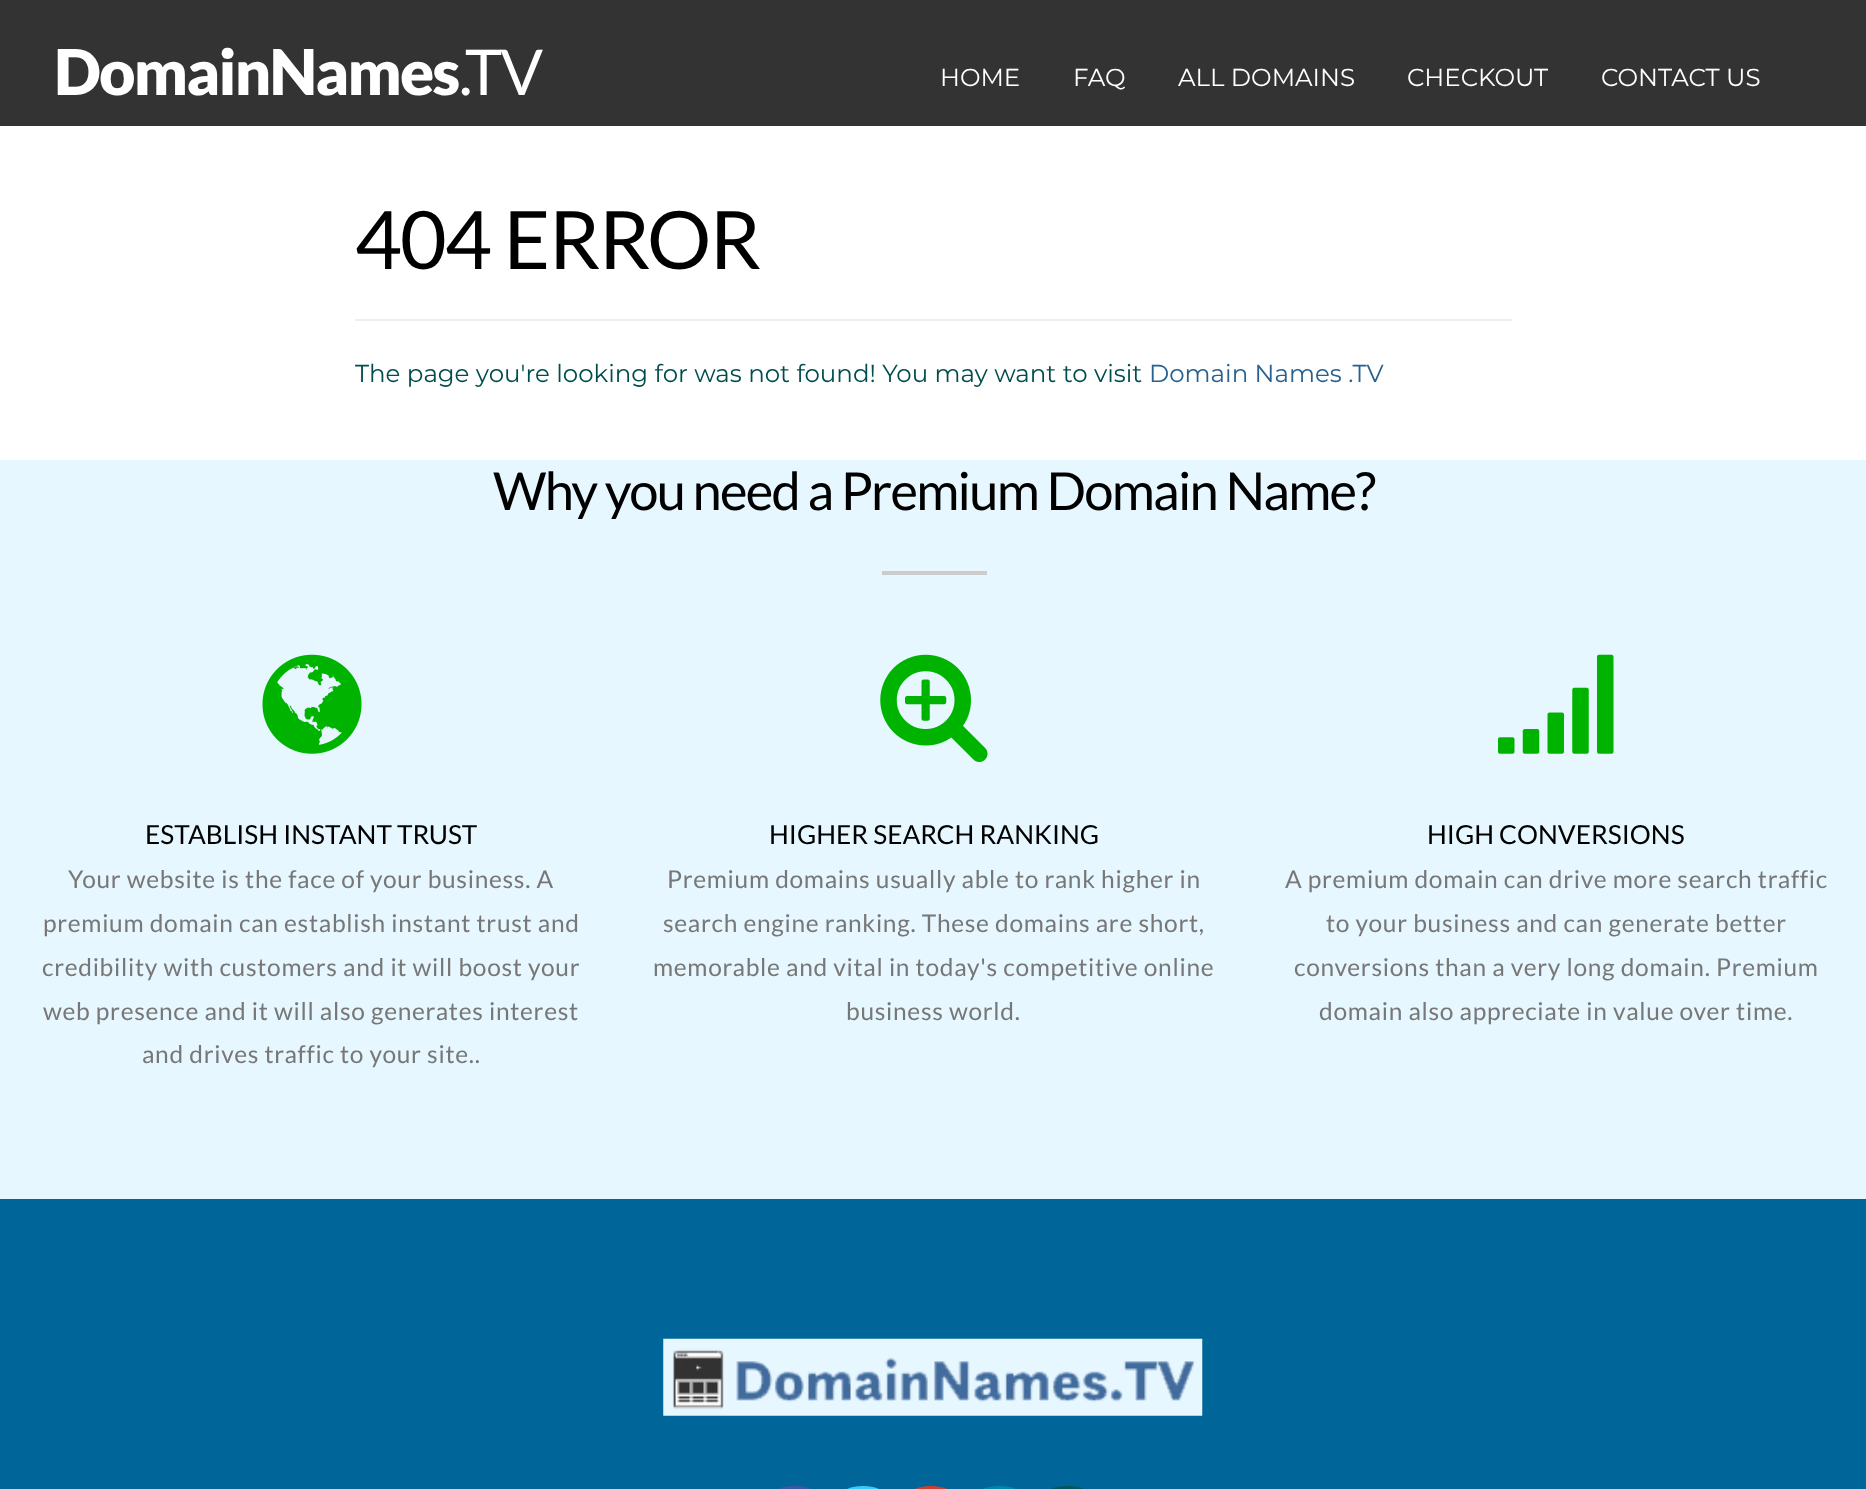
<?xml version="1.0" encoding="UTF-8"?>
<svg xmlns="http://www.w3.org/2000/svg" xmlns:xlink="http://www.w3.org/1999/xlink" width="1866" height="1489">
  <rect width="100%" height="100%" fill="#ffffff" />
  <rect width="1866" height="126" fill="#333333" />
  <rect x="355" y="319" width="1157" height="2" fill="#eeeeee" />
  <rect y="460" width="1866" height="739" fill="#e6f7ff" />
  <rect x="882" y="571" width="105" height="4" fill="#cccccc" />
  <image x="262" y="654" width="100" height="100" xlink:href="image1.png" />
  <image x="880" y="654" width="108" height="108" xlink:href="image2.png" />
  <image x="1498" y="654" width="116" height="100" xlink:href="image3.png" />
  <rect y="1199" width="1866" height="290" fill="#006699" />
  <image x="663" y="1338" width="540" height="78" xlink:href="image4.png" />
  <rect x="768" y="1486" width="53" height="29" rx="26" fill="#3c599f" />
  <rect x="837" y="1486" width="52" height="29" rx="26" fill="#32ccfe" />
  <rect x="905" y="1486" width="52" height="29" rx="26" fill="#cf3d2e" />
  <rect x="973" y="1486" width="53" height="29" rx="26" fill="#0085ae" />
  <rect x="1041" y="1486" width="53" height="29" rx="26" fill="#00555c" />
  <text x="54" y="95" style="font-family: Lato; font-size: 63px; font-weight: 900; letter-spacing: -1.75px; fill: #ffffff">DomainNames</text>
  <text x="459" y="95" style="font-family: Lato; font-size: 63px; letter-spacing: -1.75px; fill: #ffffff">.TV</text>
  <text x="940" y="86" style="font-family: Montserrat; font-size: 24.5px; fill: #ffffff">HOME</text>
  <text x="1073" y="86" style="font-family: Montserrat; font-size: 24.5px; fill: #ffffff">FAQ</text>
  <text x="1178" y="86" style="font-family: Montserrat; font-size: 24.5px; fill: #ffffff">ALL DOMAINS</text>
  <text x="1407" y="86" style="font-family: Montserrat; font-size: 24.5px; fill: #ffffff">CHECKOUT</text>
  <text x="1601" y="86" style="font-family: Montserrat; font-size: 24.5px; fill: #ffffff">CONTACT US</text>
  <text x="355" y="269" style="font-family: Lato; font-size: 80.5px; letter-spacing: -1.75px; fill: #000000">404 ERROR</text>
  <text x="355" y="382" style="font-family: Montserrat; font-size: 24.5px; fill: #004d4d">The page you're looking for was not found! You may want to visit</text>
  <text x="1149" y="382" style="font-family: Montserrat; font-size: 24.5px; fill: #286090">Domain Names .TV</text>
  <text x="493" y="510" style="font-family: Lato; font-size: 52.5px; letter-spacing: -1.75px; fill: #000000">Why you need a Premium Domain Name?</text>
  <text x="145" y="844" style="font-family: Lato; font-size: 26.25px; fill: #000000">ESTABLISH INSTANT TRUST</text>
  <text x="68" y="888" style="font-family: Lato; font-size: 24.5px; letter-spacing: 0.7px; fill: #777777">Your website is the face of your business. A</text>
  <text x="43" y="932" style="font-family: Lato; font-size: 24.5px; letter-spacing: 0.7px; fill: #777777">premium domain can establish instant trust and</text>
  <text x="42" y="976" style="font-family: Lato; font-size: 24.5px; letter-spacing: 0.7px; fill: #777777">credibility with customers and it will boost your</text>
  <text x="43" y="1020" style="font-family: Lato; font-size: 24.5px; letter-spacing: 0.7px; fill: #777777">web presence and it will also generates interest</text>
  <text x="142" y="1063" style="font-family: Lato; font-size: 24.5px; letter-spacing: 0.7px; fill: #777777">and drives traffic to your site..</text>
  <text x="769" y="844" style="font-family: Lato; font-size: 26.25px; fill: #000000">HIGHER SEARCH RANKING</text>
  <text x="667" y="888" style="font-family: Lato; font-size: 24.5px; letter-spacing: 0.7px; fill: #777777">Premium domains usually able to rank higher in</text>
  <text x="663" y="932" style="font-family: Lato; font-size: 24.5px; letter-spacing: 0.7px; fill: #777777">search engine ranking. These domains are short,</text>
  <text x="653" y="976" style="font-family: Lato; font-size: 24.5px; letter-spacing: 0.7px; fill: #777777">memorable and vital in today's competitive online</text>
  <text x="846" y="1020" style="font-family: Lato; font-size: 24.5px; letter-spacing: 0.7px; fill: #777777">business world.</text>
  <text x="1427" y="844" style="font-family: Lato; font-size: 26.25px; fill: #000000">HIGH CONVERSIONS</text>
  <text x="1285" y="888" style="font-family: Lato; font-size: 24.5px; letter-spacing: 0.7px; fill: #777777">A premium domain can drive more search traffic</text>
  <text x="1326" y="932" style="font-family: Lato; font-size: 24.5px; letter-spacing: 0.7px; fill: #777777">to your business and can generate better</text>
  <text x="1294" y="976" style="font-family: Lato; font-size: 24.5px; letter-spacing: 0.7px; fill: #777777">conversions than a very long domain. Premium</text>
  <text x="1319" y="1020" style="font-family: Lato; font-size: 24.5px; letter-spacing: 0.7px; fill: #777777">domain also appreciate in value over time.</text>
</svg>
